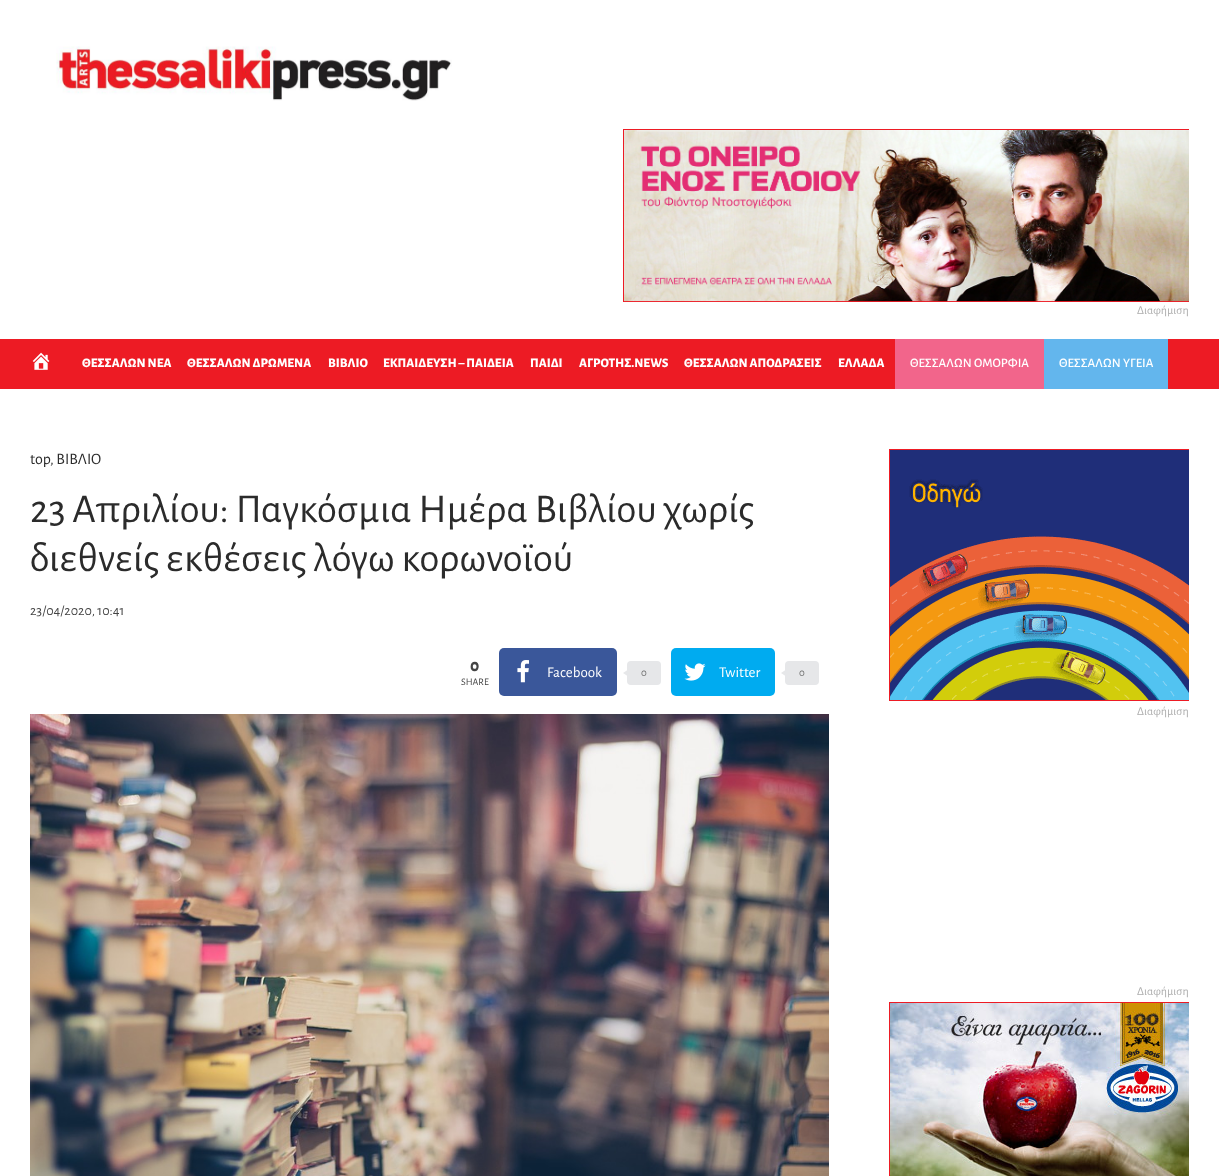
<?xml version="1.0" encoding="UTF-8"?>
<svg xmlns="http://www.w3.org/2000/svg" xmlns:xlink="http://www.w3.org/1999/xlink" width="1219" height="1176">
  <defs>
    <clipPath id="clip1"><rect x="623" y="129" width="566" height="190" /></clipPath>
    <clipPath id="clip2"><rect x="889" y="449" width="300" height="273" /></clipPath>
    <clipPath id="clip3"><rect x="889" y="1002" width="300" height="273" /></clipPath>
  </defs>
  <rect width="100%" height="100%" fill="#ffffff" />
  <image x="56" y="46" width="396" height="55" xlink:href="image1.png" />
  <g clip-path="url(#clip1)">
    <rect x="623.5" y="129.5" width="567" height="172" fill="none" stroke="#ed1b24" />
  </g>
  <image x="624" y="130" width="565" height="172" xlink:href="image2.png" />
  <rect y="339" width="1219" height="50" fill="#ed1b24" />
  <image x="32" y="352" width="18" height="18" xlink:href="image3.png" />
  <rect x="895" y="339" width="149" height="50" fill="#f2658b" />
  <rect x="1044" y="339" width="124" height="50" fill="#63b6ed" />
  <rect x="499" y="648" width="118" height="48" rx="5" fill="#3a579a" />
  <image x="517" y="660" width="12" height="23" xlink:href="image4.png" />
  <rect x="627" y="661" width="34" height="24" rx="4" fill="#e6e7e9" />
  <path d="M 629 669 v 8 l -6 -4 z" fill="#e6e7e9" />
  <rect x="671" y="648" width="104" height="48" rx="5" fill="#00abf0" />
  <image x="684" y="663" width="22" height="18" xlink:href="image5.png" />
  <rect x="785" y="661" width="34" height="24" rx="4" fill="#e6e7e9" />
  <path d="M 787 669 v 8 l -6 -4 z" fill="#e6e7e9" />
  <image x="30" y="714" width="799" height="462" xlink:href="image6.png" />
  <g clip-path="url(#clip2)">
    <rect x="889.5" y="449.5" width="301" height="251" fill="none" stroke="#ed1b24" />
  </g>
  <image x="890" y="450" width="299" height="250" xlink:href="image7.png" />
  <g clip-path="url(#clip3)">
    <rect x="889.5" y="1002.5" width="301" height="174" fill="none" stroke="#ed1b24" />
  </g>
  <image x="890" y="1003" width="299" height="173" xlink:href="image8.png" />
  <text x="1137" y="314" style="font-family: Alegreya Sans; font-size: 12px; fill: #adadad">Διαφήμιση</text>
  <text x="82" y="367" style="font-family: Alegreya Sans; font-size: 13px; font-weight: 800; fill: #ffffff">ΘΕΣΣΑΛΩΝ ΝΕΑ</text>
  <text x="187" y="367" style="font-family: Alegreya Sans; font-size: 13px; font-weight: 800; fill: #ffffff">ΘΕΣΣΑΛΩΝ ΔΡΩΜΕΝΑ</text>
  <text x="328" y="367" style="font-family: Alegreya Sans; font-size: 13px; font-weight: 800; fill: #ffffff">ΒΙΒΛΙΟ</text>
  <text x="383" y="367" style="font-family: Alegreya Sans; font-size: 13px; font-weight: 800; fill: #ffffff">ΕΚΠΑΙΔΕΥΣΗ – ΠΑΙΔΕΙΑ</text>
  <text x="530" y="367" style="font-family: Alegreya Sans; font-size: 13px; font-weight: 800; fill: #ffffff">ΠΑΙΔΙ</text>
  <text x="579" y="367" style="font-family: Alegreya Sans; font-size: 13px; font-weight: 800; fill: #ffffff">ΑΓΡΟΤΗΣ.NEWS</text>
  <text x="684" y="367" style="font-family: Alegreya Sans; font-size: 13px; font-weight: 800; fill: #ffffff">ΘΕΣΣΑΛΩΝ ΑΠΟΔΡΑΣΕΙΣ</text>
  <text x="838" y="367" style="font-family: Alegreya Sans; font-size: 13px; font-weight: 800; fill: #ffffff">ΕΛΛΑΔΑ</text>
  <text x="910" y="367" style="font-family: Alegreya Sans; font-size: 13px; font-weight: 500; fill: #ffffff">ΘΕΣΣΑΛΩΝ ΟΜΟΡΦΙΑ</text>
  <text x="1059" y="367" style="font-family: Alegreya Sans; font-size: 13px; font-weight: 500; fill: #ffffff">ΘΕΣΣΑΛΩΝ ΥΓΕΙΑ</text>
  <text x="30" y="464" style="font-family: Alegreya Sans; font-size: 16px; fill: #2b2b2b">top</text>
  <text x="50" y="464" style="font-family: Alegreya Sans; font-size: 16px; fill: #2b2b2b">, ΒΙΒΛΙΟ</text>
  <text x="30" y="522" style="font-family: Alegreya Sans; font-size: 41px; fill: #2b2b2b">23 Απριλίου: Παγκόσμια Ημέρα Βιβλίου χωρίς</text>
  <text x="30" y="571" style="font-family: Alegreya Sans; font-size: 41px; fill: #2b2b2b">διεθνείς εκθέσεις λόγω κορωνοϊού</text>
  <text x="30" y="615" style="font-family: Alegreya Sans; font-size: 14px; fill: #444444">23/04/2020, 10:41</text>
  <text x="470" y="671" style="font-family: Alegreya Sans; font-size: 18px; font-weight: 800; fill: #444444">0</text>
  <text x="461" y="685" style="font-family: Alegreya Sans; font-size: 10px; fill: #444444">SHARE</text>
  <text x="547" y="677" style="font-family: Alegreya Sans; font-size: 15px; fill: #ffffff">Facebook</text>
  <text x="641" y="676" style="font-family: Alegreya Sans; font-size: 11px; fill: #666666">0</text>
  <text x="719" y="677" style="font-family: Alegreya Sans; font-size: 15px; fill: #ffffff">Twitter</text>
  <text x="799" y="676" style="font-family: Alegreya Sans; font-size: 11px; fill: #666666">0</text>
  <text x="1137" y="715" style="font-family: Alegreya Sans; font-size: 12px; fill: #adadad">Διαφήμιση</text>
  <text x="1137" y="995" style="font-family: Alegreya Sans; font-size: 12px; fill: #adadad">Διαφήμιση</text>
</svg>
